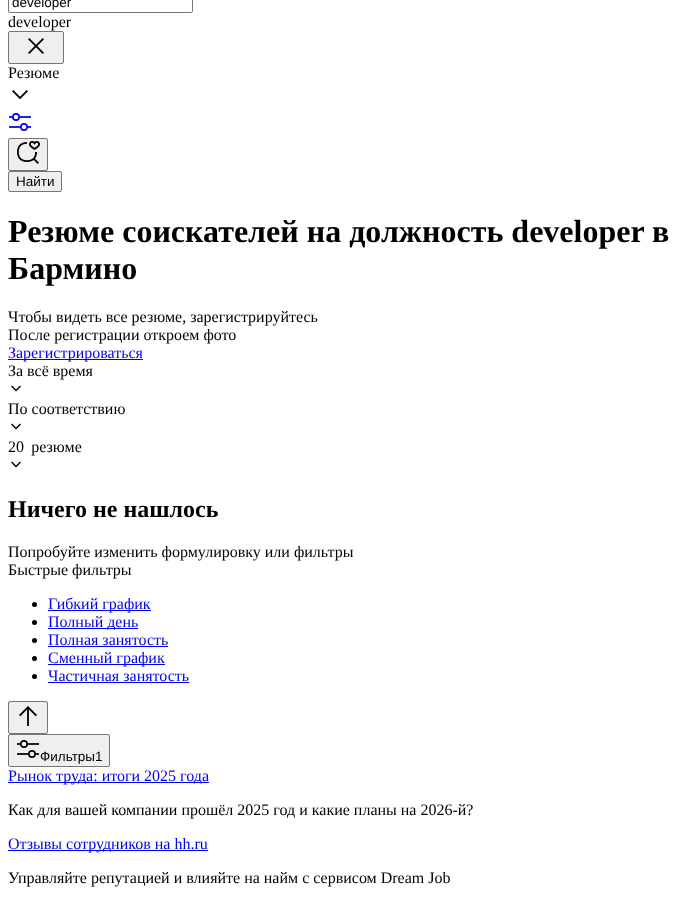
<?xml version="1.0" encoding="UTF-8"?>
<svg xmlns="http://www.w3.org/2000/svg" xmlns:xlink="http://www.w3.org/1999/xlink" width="678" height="906">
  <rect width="100%" height="100%" fill="#ffffff" />
  <rect x="8.5" y="-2.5" width="184" height="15" rx="1.5" fill="none" stroke="#767676" />
  <rect x="8.5" y="31.5" width="55" height="32" rx="1.5" fill="#efefef" stroke="#767676" />
  <image x="28" y="38" width="16" height="16" xlink:href="image1.png" />
  <image x="12" y="90" width="16" height="10" xlink:href="image2.png" />
  <image x="9" y="113" width="22" height="18" xlink:href="image3.png" />
  <rect x="8.5" y="138.5" width="39" height="32" rx="1.5" fill="#efefef" stroke="#767676" />
  <image x="17" y="141" width="23" height="23" xlink:href="image4.png" />
  <rect x="8.5" y="171.5" width="53" height="20" rx="1.5" fill="#efefef" stroke="#767676" />
  <rect x="8" y="359" width="135" height="1" fill="#0000ee" />
  <image x="11" y="385" width="10" height="7" xlink:href="image5.png" />
  <image x="11" y="423" width="10" height="7" xlink:href="image5.png" />
  <image x="11" y="461" width="10" height="7" xlink:href="image5.png" />
  <circle cx="34.5" cy="604.5" r="2.5" fill="#000000" />
  <rect x="48" y="610" width="103" height="1" fill="#0000ee" />
  <circle cx="34.5" cy="622.5" r="2.5" fill="#000000" />
  <rect x="48" y="628" width="90" height="1" fill="#0000ee" />
  <circle cx="34.5" cy="640.5" r="2.5" fill="#000000" />
  <rect x="48" y="646" width="120" height="1" fill="#0000ee" />
  <circle cx="34.5" cy="658.5" r="2.5" fill="#000000" />
  <rect x="48" y="664" width="117" height="1" fill="#0000ee" />
  <circle cx="34.5" cy="676.5" r="2.5" fill="#000000" />
  <rect x="48" y="682" width="141" height="1" fill="#0000ee" />
  <rect x="8.5" y="701.5" width="39" height="32" rx="1.5" fill="#efefef" stroke="#767676" />
  <image x="19" y="706" width="18" height="20" xlink:href="image6.png" />
  <rect x="8.5" y="734.5" width="101" height="32" rx="1.5" fill="#efefef" stroke="#767676" />
  <image x="17" y="740" width="22" height="18" xlink:href="image7.png" />
  <rect x="8" y="782" width="201" height="1" fill="#0000ee" />
  <rect x="8" y="850" width="200" height="1" fill="#0000ee" />
  <text x="12" y="7" style="font-family: Liberation Sans; font-size: 13.5px; fill: #000000">developer</text>
  <text x="8" y="27" style="font-family: Liberation Serif; font-size: 16px; fill: #000000">developer</text>
  <text x="8" y="78" style="font-family: Liberation Serif; font-size: 16px; fill: #000000">Резюме</text>
  <text x="16" y="186" style="font-family: Liberation Sans; font-size: 13.5px; fill: #000000">Найти</text>
  <text x="8" y="242" style="font-family: Liberation Serif; font-size: 32px; font-weight: bold; fill: #000000">Резюме соискателей на должность developer в</text>
  <text x="8" y="279" style="font-family: Liberation Serif; font-size: 32px; font-weight: bold; fill: #000000">Бармино</text>
  <text x="8" y="322" style="font-family: Liberation Serif; font-size: 16px; fill: #000000">Чтобы видеть все резюме, зарегистрируйтесь</text>
  <text x="8" y="340" style="font-family: Liberation Serif; font-size: 16px; fill: #000000">После регистрации откроем фото</text>
  <text x="8" y="358" style="font-family: Liberation Serif; font-size: 16px; fill: #0000ee">Зарегистрироваться</text>
  <text x="8" y="376" style="font-family: Liberation Serif; font-size: 16px; fill: #000000">За всё время</text>
  <text x="8" y="414" style="font-family: Liberation Serif; font-size: 16px; fill: #000000">По соответствию</text>
  <text x="8" y="452" style="font-family: Liberation Serif; font-size: 16px; fill: #000000">20  резюме</text>
  <text x="8" y="517" style="font-family: Liberation Serif; font-size: 24px; font-weight: bold; fill: #000000">Ничего не нашлось</text>
  <text x="8" y="557" style="font-family: Liberation Serif; font-size: 16px; fill: #000000">Попробуйте изменить формулировку или фильтры</text>
  <text x="8" y="575" style="font-family: Liberation Serif; font-size: 16px; fill: #000000">Быстрые фильтры</text>
  <text x="48" y="609" style="font-family: Liberation Serif; font-size: 16px; fill: #0000ee">Гибкий график</text>
  <text x="48" y="627" style="font-family: Liberation Serif; font-size: 16px; fill: #0000ee">Полный день</text>
  <text x="48" y="645" style="font-family: Liberation Serif; font-size: 16px; fill: #0000ee">Полная занятость</text>
  <text x="48" y="663" style="font-family: Liberation Serif; font-size: 16px; fill: #0000ee">Сменный график</text>
  <text x="48" y="681" style="font-family: Liberation Serif; font-size: 16px; fill: #0000ee">Частичная занятость</text>
  <text x="40" y="761" style="font-family: Liberation Sans; font-size: 13.5px; fill: #000000">Фильтры1</text>
  <text x="8" y="781" style="font-family: Liberation Serif; font-size: 16px; fill: #0000ee">Рынок труда: итоги 2025 года</text>
  <text x="8" y="815" style="font-family: Liberation Serif; font-size: 16px; fill: #000000">Как для вашей компании прошёл 2025 год и какие планы на 2026-й?</text>
  <text x="8" y="849" style="font-family: Liberation Serif; font-size: 16px; fill: #0000ee">Отзывы сотрудников на hh.ru</text>
  <text x="8" y="883" style="font-family: Liberation Serif; font-size: 16px; fill: #000000">Управляйте репутацией и влияйте на найм с сервисом Dream Job</text>
</svg>
